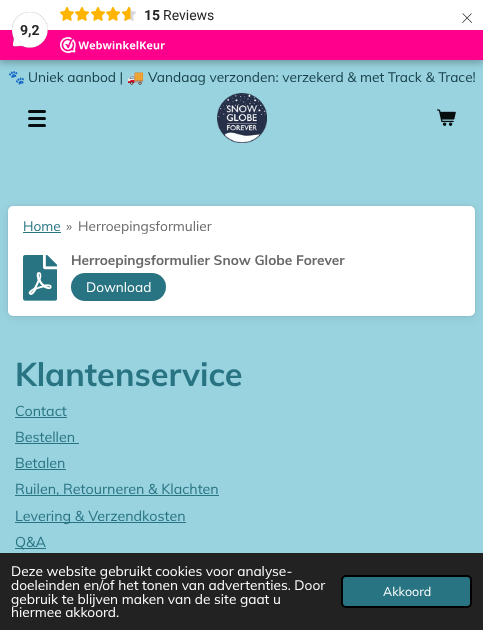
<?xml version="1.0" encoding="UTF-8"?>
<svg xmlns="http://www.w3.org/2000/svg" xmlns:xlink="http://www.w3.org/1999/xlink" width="483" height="630">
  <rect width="100%" height="100%" fill="#99d3df" />
  <rect x="-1" y="-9" width="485" height="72" fill="#000000" fill-opacity="0.15" filter="blur(3px)" />
  <rect y="2" width="483" height="60" fill="#000000" fill-opacity="0.15" filter="blur(5px)" />
  <rect width="483" height="30" fill="#ffffff" />
  <image x="60" y="7" width="14" height="14" xlink:href="image1.png" />
  <image x="75" y="7" width="14" height="14" xlink:href="image1.png" />
  <image x="91" y="7" width="14" height="14" xlink:href="image1.png" />
  <image x="106" y="7" width="14" height="14" xlink:href="image1.png" />
  <image x="122" y="7" width="14" height="14" xlink:href="image2.png" />
  <image x="122" y="7" width="9" height="14" xlink:href="image3.png" />
  <rect y="30" width="483" height="30" fill="#fe008c" />
  <image x="12" y="12" width="36" height="36" xlink:href="image4.png" />
  <image x="60" y="37" width="105" height="16" xlink:href="image5.png" />
  <rect x="28" y="117" width="18" height="3" rx="1.5" fill="#050d0e" />
  <rect x="28" y="110" width="18" height="3" rx="1.5" fill="#050d0e" />
  <rect x="28" y="124" width="18" height="3" rx="1.5" fill="#050d0e" />
  <image x="217" y="93" width="50" height="50" xlink:href="image6.png" />
  <image x="437" y="109" width="19" height="17" xlink:href="image7.png" />
  <rect x="8" y="206" width="467" height="110" rx="5" fill="#000000" fill-opacity="0.1" filter="blur(1px)" />
  <rect x="8" y="208" width="467" height="110" rx="5" fill="#000000" fill-opacity="0.07" filter="blur(4px)" />
  <rect x="8" y="206" width="467" height="110" rx="5" fill="#ffffff" />
  <rect x="23" y="232" width="38" height="1" fill="#297483" />
  <image x="23" y="255" width="34" height="46" xlink:href="image8.png" />
  <rect x="71" y="273" width="95" height="28" rx="14" fill="#297483" />
  <rect x="15" y="417" width="52" height="1" fill="#297483" />
  <rect x="15" y="443" width="64" height="1" fill="#297483" />
  <rect x="15" y="469" width="51" height="1" fill="#297483" />
  <rect x="15" y="495" width="204" height="1" fill="#297483" />
  <rect x="15" y="522" width="171" height="1" fill="#297483" />
  <rect x="15" y="548" width="31" height="1" fill="#297483" />
  <rect y="553" width="483" height="77" fill="#222222" />
  <rect x="342" y="576" width="129" height="31" rx="4" fill="#297483" stroke="#000000" stroke-width="2" />
  <text x="144" y="20" style="font-family: Roboto; font-size: 14px; font-weight: bold; fill: #272626">15</text>
  <text x="163" y="20" style="font-family: Roboto; font-size: 14px; fill: #272626">Reviews</text>
  <text x="461" y="23" style="font-family: Roboto; font-size: 24px; font-weight: 100; fill: #272626">×</text>
  <text x="20" y="35" style="font-family: Roboto; font-size: 14px; font-weight: bold; fill: #272626">9,2</text>
  <text x="8" y="82" style="font-family: Noto Color Emoji; font-size: 13.7px; fill: #174049">🐾</text>
  <text x="28" y="82" style="font-family: Muli; font-size: 13.7px; fill: #174049">Uniek aanbod |</text>
  <text x="127" y="82" style="font-family: Noto Color Emoji; font-size: 13.7px; fill: #174049">🚚</text>
  <text x="148" y="82" style="font-family: Muli; font-size: 13.7px; fill: #174049">Vandaag verzonden: verzekerd &amp; met Track &amp; Trace!</text>
  <text x="23" y="231" style="font-family: Muli; font-size: 13.7px; fill: #297483">Home</text>
  <text x="66" y="231" style="font-family: Muli; font-size: 13.7px; fill: #686868">»</text>
  <text x="78" y="231" style="font-family: Muli; font-size: 13.7px; fill: #686868">Herroepingsformulier</text>
  <text x="71" y="265" style="font-family: Muli; font-size: 13.7px; font-weight: bold; fill: #686868">Herroepingsformulier Snow Globe Forever</text>
  <text x="86" y="292" style="font-family: Muli; font-size: 13.7px; fill: #ffffff">Download</text>
  <text x="15" y="386" style="font-family: Muli; font-size: 32.5px; font-weight: bold; fill: #297483">Klantenservice</text>
  <text x="15" y="416" style="font-family: Muli; font-size: 14.25px; fill: #297483">Contact</text>
  <text x="15" y="442" style="font-family: Muli; font-size: 14.25px; fill: #297483">Bestellen</text>
  <text x="15" y="468" style="font-family: Muli; font-size: 14.25px; fill: #297483">Betalen</text>
  <text x="15" y="494" style="font-family: Muli; font-size: 14.25px; fill: #297483">Ruilen, Retourneren &amp; Klachten</text>
  <text x="15" y="521" style="font-family: Muli; font-size: 14.25px; fill: #297483">Levering &amp; Verzendkosten</text>
  <text x="15" y="547" style="font-family: Muli; font-size: 14.25px; fill: #297483">Q&amp;A</text>
  <text x="11" y="576" style="font-family: Muli; font-size: 13.7px; fill: #ffffff">Deze website gebruikt cookies voor analyse-</text>
  <text x="11" y="590" style="font-family: Muli; font-size: 13.7px; fill: #ffffff">doeleinden en/of het tonen van advertenties. Door</text>
  <text x="11" y="604" style="font-family: Muli; font-size: 13.7px; fill: #ffffff">gebruik te blijven maken van de site gaat u</text>
  <text x="11" y="617" style="font-family: Muli; font-size: 13.7px; fill: #ffffff">hiermee akkoord.</text>
  <text x="383" y="596" style="font-family: Muli; font-size: 12.5px; fill: #ffffff">Akkoord</text>
</svg>
